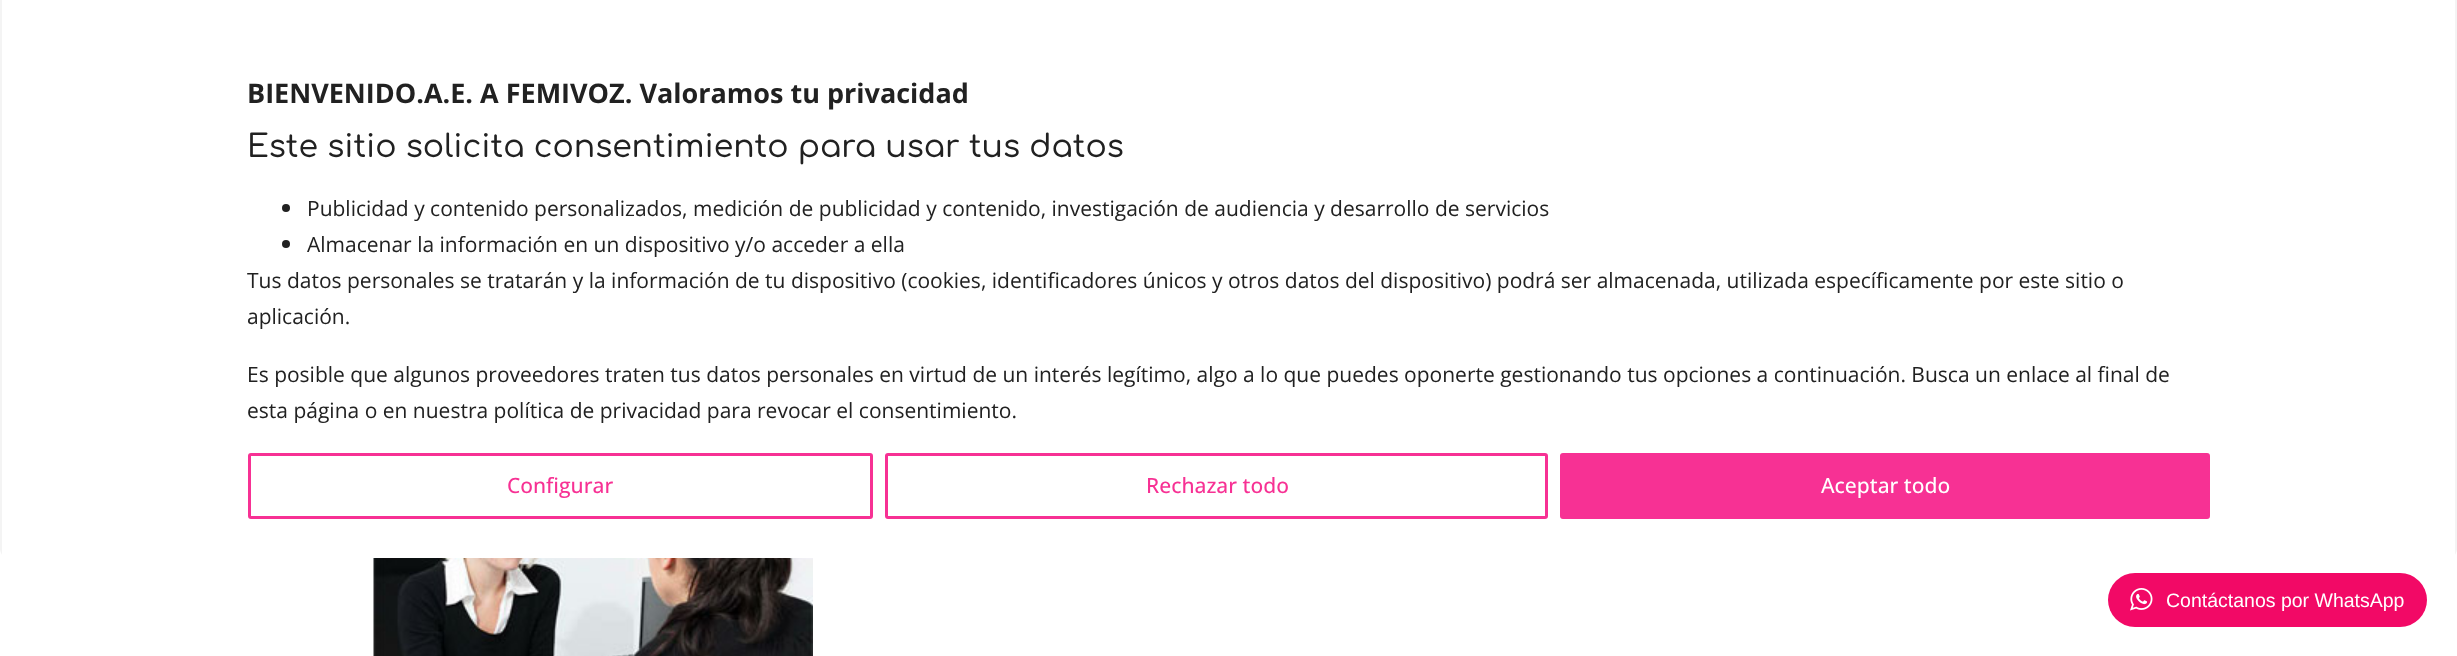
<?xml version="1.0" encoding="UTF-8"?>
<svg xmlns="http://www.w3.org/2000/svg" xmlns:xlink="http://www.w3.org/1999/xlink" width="2457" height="656">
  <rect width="100%" height="100%" fill="#ffffff" />
  <path d="M 9 -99 c -5 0 -9 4 -9 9 v 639 c 0 2 1 4 2 6 v -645 c 0 -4 3 -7 7 -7 h 2439 c 4 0 7 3 7 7 v 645 c 1 -2 2 -4 2 -6 v -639 c 0 -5 -4 -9 -9 -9 z" fill="#f4f4f4" />
  <circle cx="286" cy="208" r="4" fill="#212121" />
  <circle cx="286" cy="244" r="4" fill="#212121" />
  <rect x="249.5" y="454.5" width="622" height="63" rx="1.5" fill="none" stroke="#f73194" stroke-width="3" />
  <rect x="886.5" y="454.5" width="660" height="63" rx="1.5" fill="none" stroke="#f73194" stroke-width="3" />
  <rect x="1561.5" y="454.5" width="647" height="63" rx="1.5" fill="#f73194" stroke="#f73194" stroke-width="3" />
  <image x="373" y="558" width="440" height="98" xlink:href="image1.png" />
  <rect x="2108" y="573" width="319" height="54" rx="27" fill="#f20966" />
  <image x="2130" y="588" width="23" height="23" xlink:href="image2.png" />
  <text x="247" y="103" style="font-family: Open Sans; font-size: 27px; font-weight: bold; fill: #212121">BIENVENIDO.A.E. A FEMIVOZ. Valoramos tu privacidad</text>
  <text x="247" y="157" style="font-family: Comfortaa; font-size: 31.5px; font-weight: 500; fill: #212121">Este sitio solicita consentimiento para usar tus datos</text>
  <text x="307" y="216" style="font-family: Open Sans; font-size: 21px; fill: #212121">Publicidad y contenido personalizados, medición de publicidad y contenido, investigación de audiencia y desarrollo de servicios</text>
  <text x="307" y="252" style="font-family: Open Sans; font-size: 21px; fill: #212121">Almacenar la información en un dispositivo y/o acceder a ella</text>
  <text x="247" y="288" style="font-family: Open Sans; font-size: 21px; fill: #212121">Tus datos personales se tratarán y la información de tu dispositivo (cookies, identificadores únicos y otros datos del dispositivo) podrá ser almacenada, utilizada específicamente por este sitio o</text>
  <text x="247" y="324" style="font-family: Open Sans; font-size: 21px; fill: #212121">aplicación.</text>
  <text x="247" y="382" style="font-family: Open Sans; font-size: 21px; fill: #212121">Es posible que algunos proveedores traten tus datos personales en virtud de un interés legítimo, algo a lo que puedes oponerte gestionando tus opciones a continuación. Busca un enlace al final de</text>
  <text x="247" y="418" style="font-family: Open Sans; font-size: 21px; fill: #212121">esta página o en nuestra política de privacidad para revocar el consentimiento.</text>
  <text x="507" y="493" style="font-family: Open Sans; font-size: 21px; font-weight: 500; fill: #f73194">Configurar</text>
  <text x="1146" y="493" style="font-family: Open Sans; font-size: 21px; font-weight: 500; fill: #f73194">Rechazar todo</text>
  <text x="1821" y="493" style="font-family: Open Sans; font-size: 21px; font-weight: 500; fill: #ffffff">Aceptar todo</text>
  <text x="2166" y="607" style="font-family: Liberation Sans; font-size: 19.5px; fill: #ffffff">Contáctanos por WhatsApp</text>
</svg>
